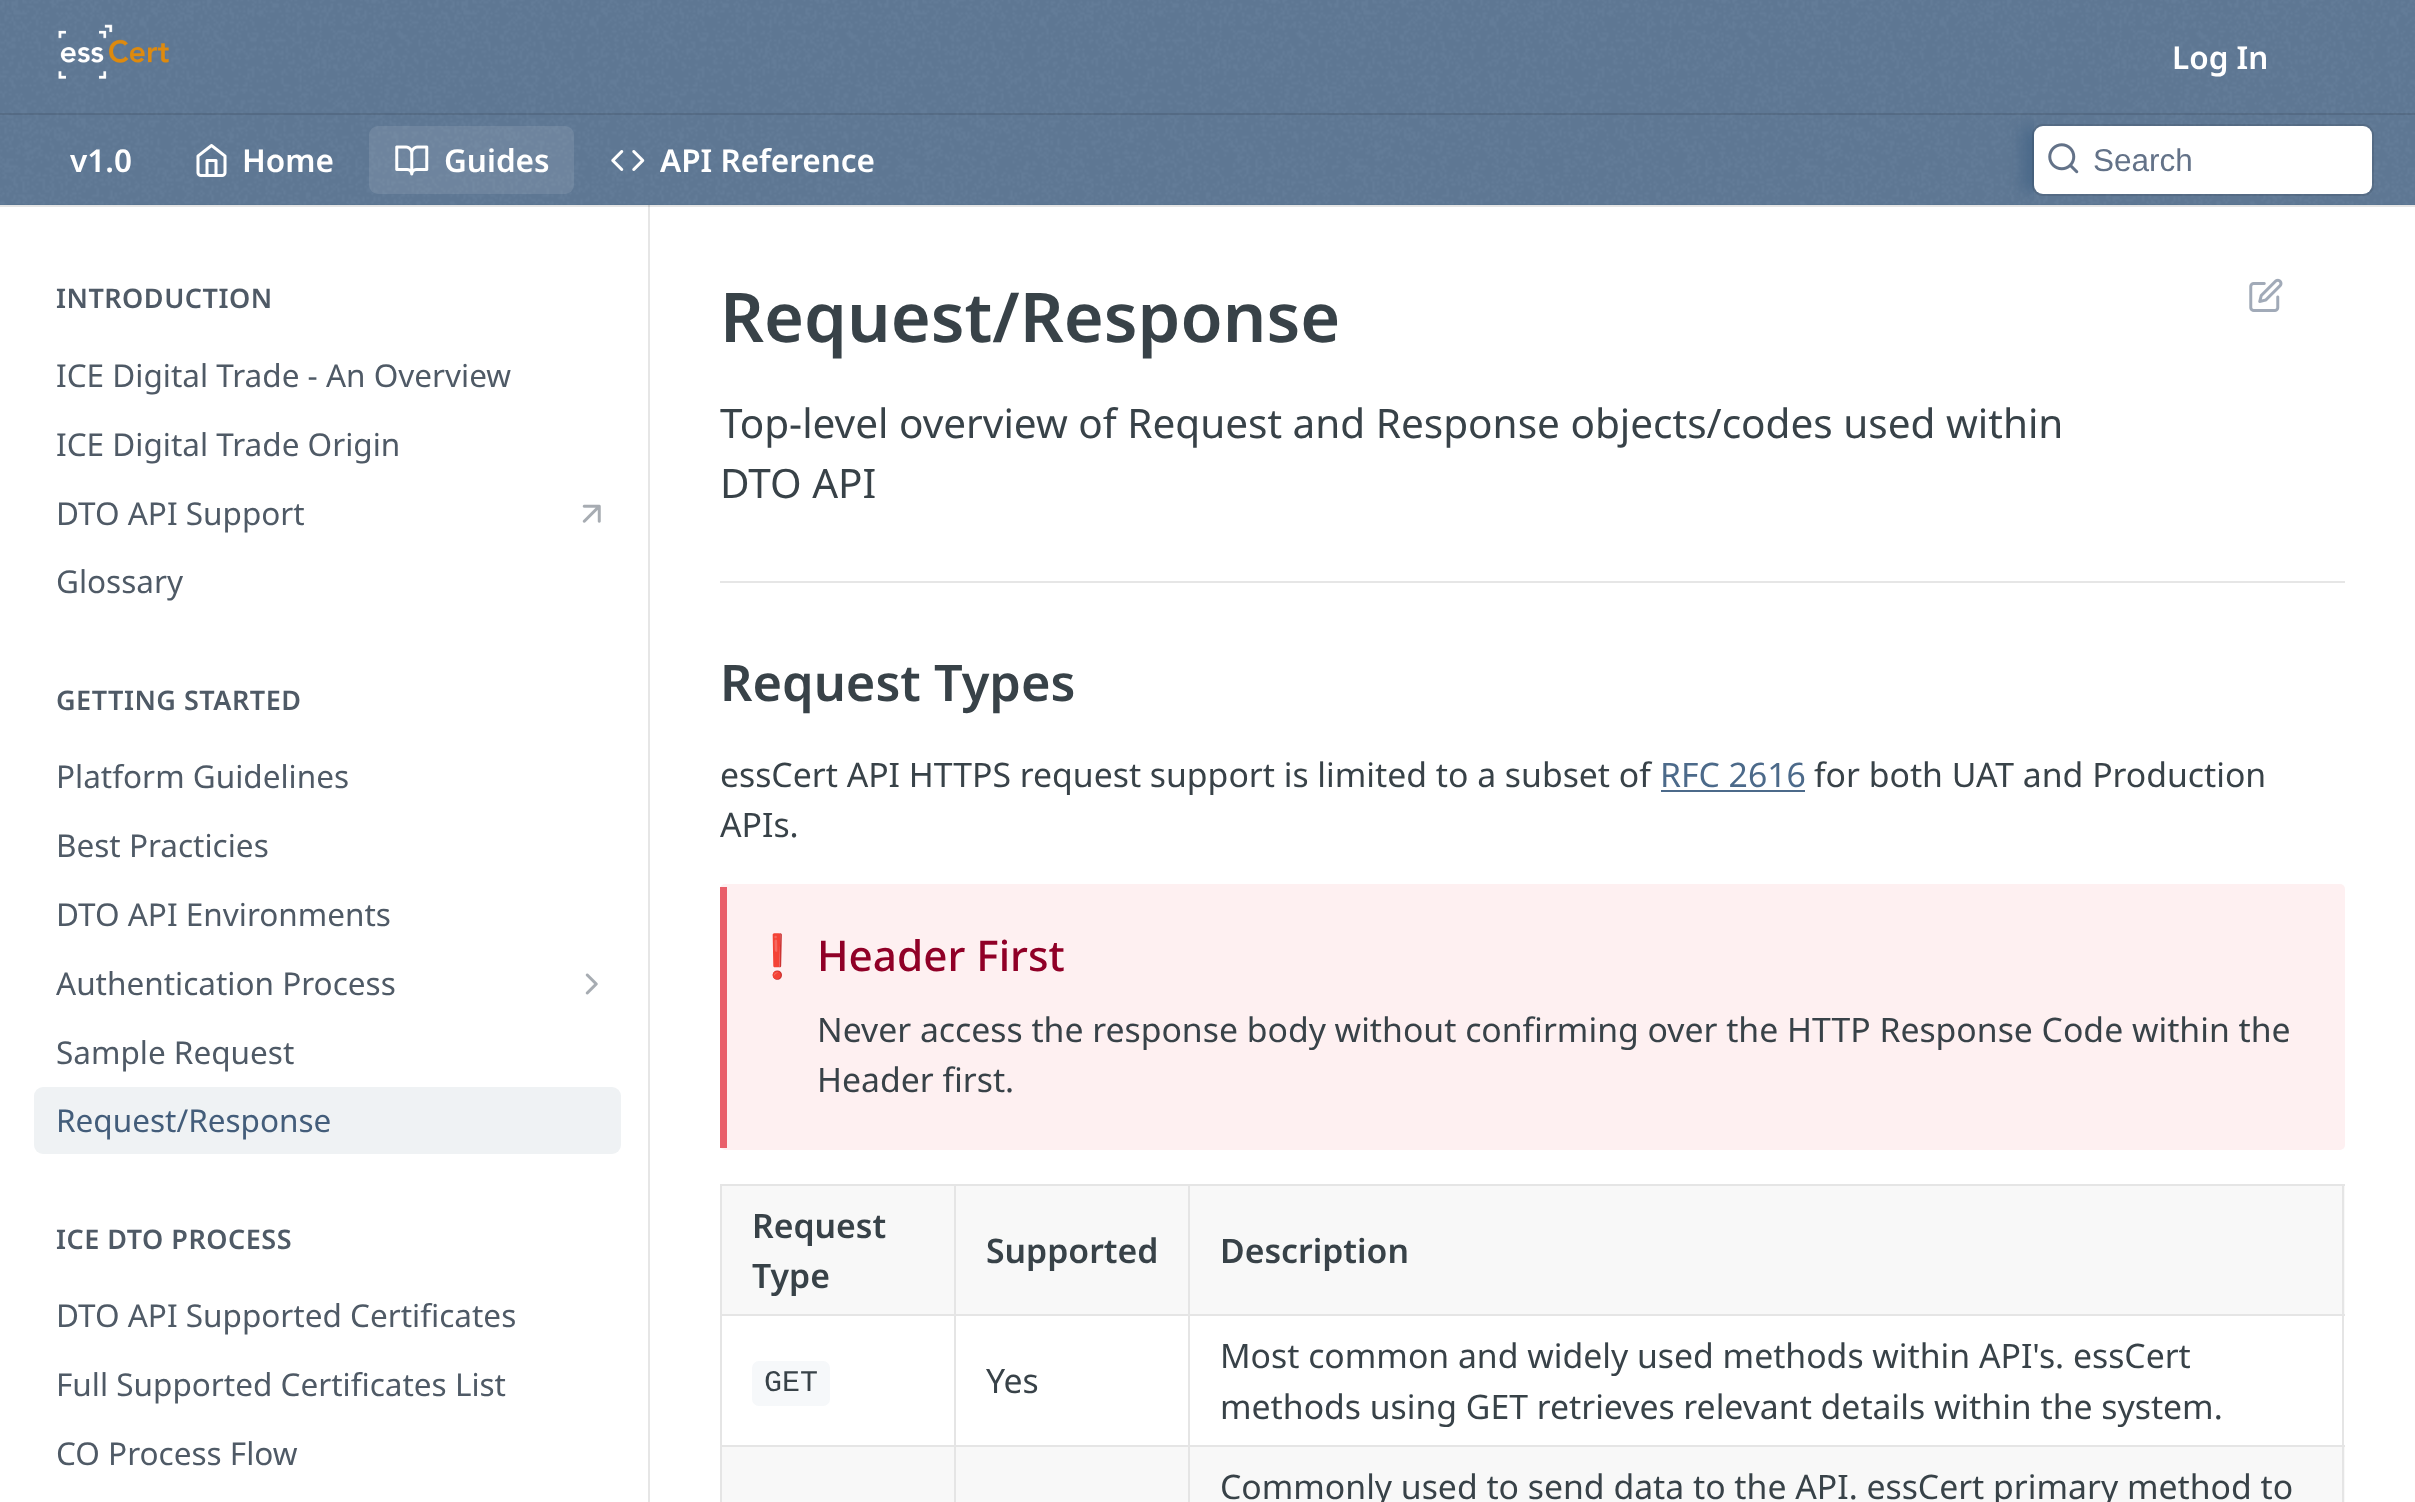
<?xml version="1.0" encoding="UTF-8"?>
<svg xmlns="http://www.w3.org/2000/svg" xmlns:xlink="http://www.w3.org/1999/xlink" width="2415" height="1502">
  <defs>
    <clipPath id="clip1"><rect x="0" y="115" width="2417" height="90" /></clipPath>
    <clipPath id="clip2"><rect x="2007" y="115" width="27" height="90" /></clipPath>
  </defs>
  <rect width="100%" height="100%" fill="#ffffff" />
  <path d="M 2 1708 h 648 v -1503 h -2 v 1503 z" fill="#e6e6e6" />
  <path d="M 0 205 v 2 h 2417 v -205 h -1 v 203 z" fill="#000000" fill-opacity="0.1" />
  <rect width="2415" height="205" fill="#4c6a8a" />
  <image x="0" y="0" width="2415" height="205" xlink:href="image1.png" />
  <rect y="113" width="2415" height="2" fill="#000000" fill-opacity="0.1" />
  <image x="58" y="24" width="111" height="55" xlink:href="image2.png" />
  <image x="196" y="144" width="31" height="33" xlink:href="image3.png" />
  <rect x="369" y="126" width="205" height="68" rx="9" fill="#ffffff" fill-opacity="0.1" />
  <image x="395" y="145" width="34" height="31" xlink:href="image4.png" />
  <image x="611" y="150" width="34" height="21" xlink:href="image5.png" />
  <g clip-path="url(#clip1)">
    <g clip-path="url(#clip2)">
      <rect x="2021" y="128" width="355" height="63" fill="#4c6a8a" filter="blur(7px)" />
    </g>
  </g>
  <rect x="2033" y="125" width="340" height="70" rx="10" fill="none" stroke="#000000" stroke-opacity="0.1" stroke-width="2" />
  <rect x="2034" y="126" width="338" height="68" rx="9" fill="#ffffff" />
  <image x="2048" y="143" width="31" height="31" xlink:href="image6.png" />
  <image x="582" y="504" width="19" height="19" xlink:href="image7.png" />
  <image x="585" y="973" width="13" height="22" xlink:href="image8.png" />
  <rect x="34" y="1087" width="587" height="67" rx="9" fill="#eff2f4" />
  <rect x="720" y="581" width="1625" height="2" fill="#e6e6e6" />
  <image x="2249" y="278" width="34" height="34" xlink:href="image9.png" />
  <rect x="1661" y="790" width="144" height="2" fill="#4c6a8a" />
  <rect x="720" y="884" width="1625" height="266" rx="5" fill="#fef0f1" />
  <rect x="720" y="887" width="7" height="261" fill="#e95f6a" />
  <rect x="720" y="1184" width="1625" height="2" fill="#e5e5e5" />
  <rect x="722" y="1186" width="1623" height="128" fill="#f8f8f8" />
  <rect x="722" y="1447" width="1623" height="55" fill="#f8f8f8" />
  <rect x="2342" y="1184" width="2" height="318" fill="#e5e5e5" />
  <rect x="720" y="1184" width="2" height="318" fill="#e5e5e5" />
  <rect x="1188" y="1314" width="1157" height="2" fill="#e5e5e5" />
  <rect x="720" y="1445" width="1625" height="2" fill="#e5e5e5" />
  <rect x="1188" y="1445" width="2" height="57" fill="#e5e5e5" />
  <rect x="1188" y="1314" width="2" height="133" fill="#e5e5e5" />
  <rect x="954" y="1314" width="236" height="2" fill="#e5e5e5" />
  <rect x="954" y="1445" width="2" height="57" fill="#e5e5e5" />
  <rect x="954" y="1314" width="2" height="133" fill="#e5e5e5" />
  <rect x="720" y="1314" width="236" height="2" fill="#e5e5e5" />
  <rect x="954" y="1184" width="2" height="132" fill="#e5e5e5" />
  <rect x="1188" y="1184" width="2" height="132" fill="#e5e5e5" />
  <rect x="752" y="1361" width="78" height="45" rx="7" fill="#f6f8fa" />
  <text x="2172" y="69" style="font-family: Noto Sans; font-size: 31.5px; font-weight: 600; fill: #ffffff">Log In</text>
  <text x="70" y="172" style="font-family: Noto Sans; font-size: 31.5px; font-weight: 600; fill: #ffffff">v1.0</text>
  <text x="242" y="172" style="font-family: Noto Sans; font-size: 31.5px; font-weight: 600; fill: #ffffff">Home</text>
  <text x="444" y="172" style="font-family: Noto Sans; font-size: 31.5px; font-weight: 600; fill: #ffffff">Guides</text>
  <text x="660" y="172" style="font-family: Noto Sans; font-size: 31.5px; font-weight: 600; fill: #ffffff">API Reference</text>
  <text x="2093" y="171" style="font-family: Liberation Sans; font-size: 31.5px; fill: #637288">Search</text>
  <text x="56" y="308" style="font-family: Noto Sans; font-size: 27px; font-weight: 600; letter-spacing: 0.5px; fill: #4f5a66">INTRODUCTION</text>
  <text x="56" y="387" style="font-family: Noto Sans; font-size: 31.5px; fill: #4f5a66">ICE Digital Trade - An Overview</text>
  <text x="56" y="456" style="font-family: Noto Sans; font-size: 31.5px; fill: #4f5a66">ICE Digital Trade Origin</text>
  <text x="56" y="525" style="font-family: Noto Sans; font-size: 31.5px; fill: #4f5a66">DTO API Support</text>
  <text x="56" y="593" style="font-family: Noto Sans; font-size: 31.5px; fill: #4f5a66">Glossary</text>
  <text x="56" y="710" style="font-family: Noto Sans; font-size: 27px; font-weight: 600; letter-spacing: 0.5px; fill: #4f5a66">GETTING STARTED</text>
  <text x="56" y="788" style="font-family: Noto Sans; font-size: 31.5px; fill: #4f5a66">Platform Guidelines</text>
  <text x="56" y="857" style="font-family: Noto Sans; font-size: 31.5px; fill: #4f5a66">Best Practicies</text>
  <text x="56" y="926" style="font-family: Noto Sans; font-size: 31.5px; fill: #4f5a66">DTO API Environments</text>
  <text x="56" y="995" style="font-family: Noto Sans; font-size: 31.5px; fill: #4f5a66">Authentication Process</text>
  <text x="56" y="1064" style="font-family: Noto Sans; font-size: 31.5px; fill: #4f5a66">Sample Request</text>
  <text x="56" y="1132" style="font-family: Noto Sans; font-size: 31.5px; fill: #435d7a">Request/Response</text>
  <text x="56" y="1249" style="font-family: Noto Sans; font-size: 27px; font-weight: 600; letter-spacing: 0.5px; fill: #4f5a66">ICE DTO PROCESS</text>
  <text x="56" y="1327" style="font-family: Noto Sans; font-size: 31.5px; fill: #4f5a66">DTO API Supported Certificates</text>
  <text x="56" y="1396" style="font-family: Noto Sans; font-size: 31.5px; fill: #4f5a66">Full Supported Certificates List</text>
  <text x="56" y="1465" style="font-family: Noto Sans; font-size: 31.5px; fill: #4f5a66">CO Process Flow</text>
  <text x="720" y="342" style="font-family: Noto Sans; font-size: 68.5px; font-weight: 600; fill: #384248">Request/Response</text>
  <text x="720" y="438" style="font-family: Noto Sans; font-size: 40.5px; fill: #384248">Top-level overview of Request and Response objects/codes used within</text>
  <text x="720" y="498" style="font-family: Noto Sans; font-size: 40.5px; fill: #384248">DTO API</text>
  <text x="720" y="701" style="font-family: Noto Sans; font-size: 50.5px; font-weight: 600; fill: #384248">Request Types</text>
  <text x="720" y="787" style="font-family: Noto Sans; font-size: 33.75px; fill: #384248">essCert API HTTPS request support is limited to a subset of</text>
  <text x="1660" y="787" style="font-family: Noto Sans; font-size: 33.75px; fill: #4c6a8a">RFC 2616</text>
  <text x="1814" y="787" style="font-family: Noto Sans; font-size: 33.75px; fill: #384248">for both UAT and Production</text>
  <text x="720" y="837" style="font-family: Noto Sans; font-size: 33.75px; fill: #384248">APIs.</text>
  <text x="751" y="971" style="font-family: Noto Color Emoji; font-size: 42.25px; fill: #900027">❗️</text>
  <text x="817" y="971" style="font-family: Noto Sans; font-size: 42.25px; font-weight: 500; fill: #900027">Header First</text>
  <text x="817" y="1042" style="font-family: Noto Sans; font-size: 33.75px; fill: #384248">Never access the response body without confirming over the HTTP Response Code within the</text>
  <text x="817" y="1092" style="font-family: Noto Sans; font-size: 33.75px; fill: #384248">Header first.</text>
  <text x="752" y="1238" style="font-family: Noto Sans; font-size: 33.75px; font-weight: 600; fill: #384248">Request</text>
  <text x="752" y="1288" style="font-family: Noto Sans; font-size: 33.75px; font-weight: 600; fill: #384248">Type</text>
  <text x="986" y="1263" style="font-family: Noto Sans; font-size: 33.75px; font-weight: 600; fill: #384248">Supported</text>
  <text x="1220" y="1263" style="font-family: Noto Sans; font-size: 33.75px; font-weight: 600; fill: #384248">Description</text>
  <text x="764" y="1391" style="font-family: Liberation Mono; font-size: 30px; fill: #384248">GET</text>
  <text x="986" y="1393" style="font-family: Noto Sans; font-size: 33.75px; fill: #384248">Yes</text>
  <text x="1220" y="1368" style="font-family: Noto Sans; font-size: 33.75px; fill: #384248">Most common and widely used methods within API's. essCert</text>
  <text x="1220" y="1419" style="font-family: Noto Sans; font-size: 33.75px; fill: #384248">methods using GET retrieves relevant details within the system.</text>
  <text x="1220" y="1499" style="font-family: Noto Sans; font-size: 33.75px; fill: #384248">Commonly used to send data to the API. essCert primary method to</text>
</svg>
